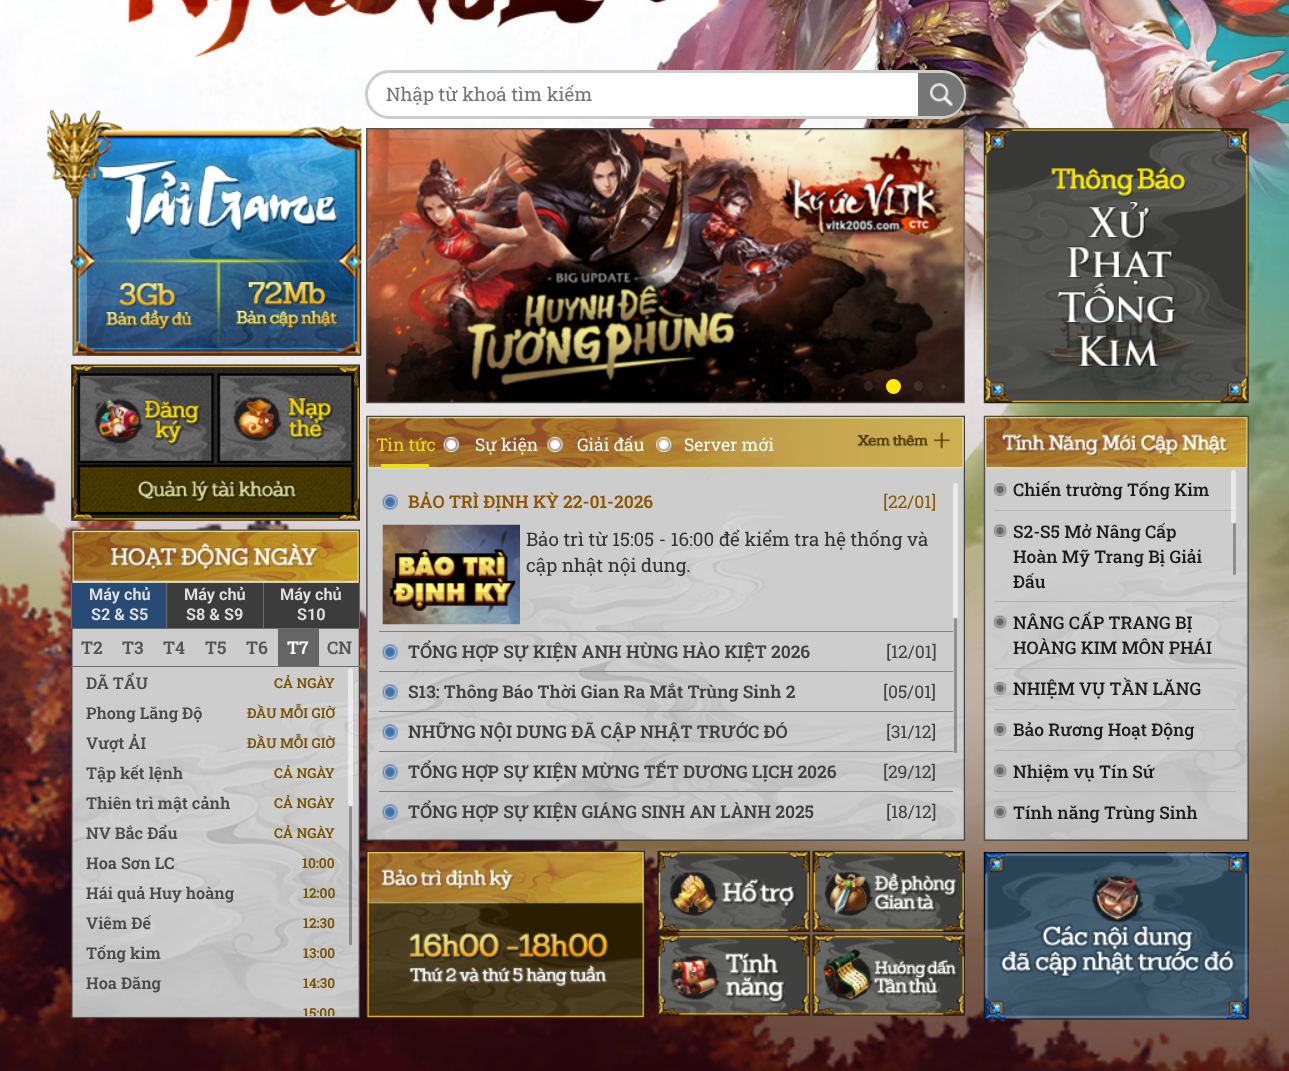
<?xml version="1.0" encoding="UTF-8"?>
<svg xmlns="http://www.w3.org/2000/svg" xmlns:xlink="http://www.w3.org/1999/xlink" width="1289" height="1071">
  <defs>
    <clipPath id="clip1"><rect x="71" y="668" width="289" height="348" /></clipPath>
  </defs>
  <rect width="100%" height="100%" fill="#ffffff" />
  <image x="0" y="0" width="1289" height="1071" xlink:href="image1.png" />
  <image x="47" y="109" width="315" height="247" xlink:href="image2.png" />
  <rect x="72" y="173" width="15" height="183" fill="#47caff" fill-opacity="0.17" />
  <rect x="72" y="173" width="15" height="183" fill="#ffffff" fill-opacity="0.17" />
  <image x="47" y="109" width="315" height="246" xlink:href="image3.png" />
  <image x="95" y="155" width="246" height="83" xlink:href="image4.png" />
  <image x="71" y="364" width="289" height="157" xlink:href="image5.png" />
  <image x="77" y="373" width="137" height="91" xlink:href="image6.png" />
  <image x="217" y="373" width="137" height="91" xlink:href="image7.png" />
  <image x="77" y="464" width="277" height="51" xlink:href="image8.png" />
  <image x="71" y="529" width="289" height="490" xlink:href="image9.png" />
  <rect x="72" y="583" width="96" height="45" fill="#284b75" />
  <rect x="166" y="583" width="1" height="46" fill="#716a6a" />
  <rect x="71" y="628" width="97" height="1" fill="#716a6a" />
  <rect x="71" y="583" width="1" height="46" fill="#716a6a" />
  <rect x="168" y="583" width="95" height="45" fill="#3c3c3c" />
  <rect x="263" y="583" width="1" height="46" fill="#716a6a" />
  <rect x="168" y="628" width="96" height="1" fill="#716a6a" />
  <rect x="264" y="583" width="95" height="45" fill="#3c3c3c" />
  <rect x="359" y="583" width="1" height="46" fill="#716a6a" />
  <rect x="264" y="628" width="96" height="1" fill="#716a6a" />
  <rect x="71" y="666" width="289" height="1" fill="#6e6a7c" />
  <rect x="278" y="629" width="41" height="37" fill="#656565" />
  <rect x="348" y="668" width="5" height="138" rx="2.5" fill="#ffffff" fill-opacity="0.56" />
  <rect x="349" y="806" width="3" height="139" rx="1.5" fill="#000000" fill-opacity="0.3" />
  <rect x="366.5" y="71.5" width="598" height="46" rx="23" fill="#ffffff" stroke="#cccccc" stroke-width="3" />
  <path d="M 918 73 h 24.5 c 12 0 21.5 9.5 21.5 21.5 c 0 12 -9.5 21.5 -21.5 21.5 h -24.5 z" fill="#767676" />
  <image x="930" y="83" width="23" height="23" xlink:href="image10.png" />
  <image x="366" y="128" width="599" height="276" xlink:href="image11.png" />
  <rect x="864" y="381" width="9" height="10" rx="4.5" fill="#898686" fill-opacity="0.2" />
  <circle cx="893.5" cy="386.5" r="7.5" fill="#ffea00" />
  <rect x="914" y="381" width="9" height="10" rx="4.5" fill="#898686" fill-opacity="0.2" />
  <rect x="941" y="384" width="4" height="5" rx="2" fill="#43342e" />
  <image x="366" y="415" width="599" height="426" xlink:href="image12.png" />
  <image x="443" y="437" width="17" height="17" xlink:href="image13.png" />
  <rect x="381" y="464" width="48" height="4" fill="#e8e009" />
  <image x="547" y="437" width="17" height="17" xlink:href="image14.png" />
  <image x="656" y="437" width="17" height="17" xlink:href="image15.png" />
  <image x="857" y="432" width="93" height="17" xlink:href="image16.png" />
  <rect x="379" y="631" width="574" height="1" fill="#84807e" />
  <image x="382" y="494" width="16" height="16" xlink:href="image17.png" />
  <image x="382" y="524" width="138" height="101" xlink:href="image18.png" />
  <rect x="379" y="671" width="574" height="1" fill="#84807e" />
  <image x="382" y="644" width="16" height="16" xlink:href="image17.png" />
  <rect x="379" y="711" width="574" height="1" fill="#84807e" />
  <image x="382" y="684" width="16" height="16" xlink:href="image19.png" />
  <rect x="379" y="751" width="574" height="1" fill="#84807e" />
  <image x="382" y="724" width="16" height="16" xlink:href="image20.png" />
  <rect x="379" y="791" width="574" height="1" fill="#84807e" />
  <image x="382" y="764" width="16" height="16" xlink:href="image21.png" />
  <image x="382" y="804" width="16" height="16" xlink:href="image22.png" />
  <rect x="953" y="483" width="5" height="135" rx="2.5" fill="#eaeaea" />
  <rect x="954" y="618" width="3" height="135" rx="1.5" fill="#000000" fill-opacity="0.3" />
  <image x="366" y="850" width="279" height="169" xlink:href="image23.png" />
  <image x="657" y="850" width="153" height="82" xlink:href="image24.png" />
  <image x="812" y="850" width="153" height="82" xlink:href="image25.png" />
  <image x="657" y="934" width="153" height="82" xlink:href="image26.png" />
  <image x="812" y="934" width="153" height="82" xlink:href="image27.png" />
  <image x="983" y="128" width="266" height="276" xlink:href="image28.png" />
  <image x="983" y="415" width="266" height="426" xlink:href="image29.png" />
  <rect x="994" y="510" width="242" height="1" fill="#b3b3b3" />
  <image x="993" y="483" width="14" height="13" xlink:href="image30.png" />
  <rect x="994" y="601" width="242" height="1" fill="#b3b3b3" />
  <image x="993" y="524" width="14" height="13" xlink:href="image31.png" />
  <rect x="994" y="668" width="242" height="1" fill="#b3b3b3" />
  <image x="993" y="615" width="14" height="14" xlink:href="image32.png" />
  <rect x="994" y="709" width="242" height="1" fill="#b3b3b3" />
  <image x="993" y="682" width="14" height="13" xlink:href="image33.png" />
  <rect x="994" y="750" width="242" height="1" fill="#b3b3b3" />
  <image x="993" y="723" width="14" height="13" xlink:href="image34.png" />
  <rect x="994" y="791" width="242" height="1" fill="#b3b3b3" />
  <image x="993" y="764" width="14" height="13" xlink:href="image35.png" />
  <image x="993" y="805" width="14" height="14" xlink:href="image36.png" />
  <rect x="1231" y="470" width="5" height="53" rx="2.5" fill="#ffffff" fill-opacity="0.56" />
  <rect x="1233" y="523" width="3" height="52" rx="1.5" fill="#000000" fill-opacity="0.3" />
  <image x="983" y="852" width="266" height="168" xlink:href="image37.png" />
  <text x="89" y="600" style="font-family: Roboto; font-size: 16.25px; font-weight: bold; fill: #dedede">Máy chủ</text>
  <text x="91" y="620" style="font-family: Roboto; font-size: 16.25px; font-weight: bold; fill: #dedede">S2 &amp; S5</text>
  <text x="184" y="600" style="font-family: Roboto; font-size: 16.25px; font-weight: bold; fill: #dedede">Máy chủ</text>
  <text x="186" y="620" style="font-family: Roboto; font-size: 16.25px; font-weight: bold; fill: #dedede">S8 &amp; S9</text>
  <text x="280" y="600" style="font-family: Roboto; font-size: 16.25px; font-weight: bold; fill: #dedede">Máy chủ</text>
  <text x="297" y="620" style="font-family: Roboto; font-size: 16.25px; font-weight: bold; fill: #dedede">S10</text>
  <text x="81" y="654" style="font-family: Roboto Slab; font-size: 17.5px; font-weight: 600; fill: #555555">T2</text>
  <text x="122" y="654" style="font-family: Roboto Slab; font-size: 17.5px; font-weight: 600; fill: #555555">T3</text>
  <text x="163" y="654" style="font-family: Roboto Slab; font-size: 17.5px; font-weight: 600; fill: #555555">T4</text>
  <text x="205" y="654" style="font-family: Roboto Slab; font-size: 17.5px; font-weight: 600; fill: #555555">T5</text>
  <text x="246" y="654" style="font-family: Roboto Slab; font-size: 17.5px; font-weight: 600; fill: #555555">T6</text>
  <text x="287" y="654" style="font-family: Roboto Slab; font-size: 17.5px; font-weight: 600; fill: #ffffff">T7</text>
  <text x="327" y="654" style="font-family: Roboto Slab; font-size: 17.5px; font-weight: 600; fill: #555555">CN</text>
  <text x="86" y="689" style="font-family: Roboto Slab; font-size: 16.25px; font-weight: 600; fill: #4a4a4a">DÃ TẨU</text>
  <text x="274" y="688" style="font-family: Roboto Slab; font-size: 13.75px; font-weight: 600; fill: #785200">CẢ NGÀY</text>
  <text x="86" y="719" style="font-family: Roboto Slab; font-size: 16.25px; font-weight: 600; fill: #4a4a4a">Phong Lăng Độ</text>
  <text x="247" y="718" style="font-family: Roboto Slab; font-size: 13.75px; font-weight: 600; fill: #785200">ĐẦU MỖI GIỜ</text>
  <text x="86" y="749" style="font-family: Roboto Slab; font-size: 16.25px; font-weight: 600; fill: #4a4a4a">Vượt ẢI</text>
  <text x="247" y="748" style="font-family: Roboto Slab; font-size: 13.75px; font-weight: 600; fill: #785200">ĐẦU MỖI GIỜ</text>
  <text x="86" y="779" style="font-family: Roboto Slab; font-size: 16.25px; font-weight: 600; fill: #4a4a4a">Tập kết lệnh</text>
  <text x="274" y="778" style="font-family: Roboto Slab; font-size: 13.75px; font-weight: 600; fill: #785200">CẢ NGÀY</text>
  <text x="86" y="809" style="font-family: Roboto Slab; font-size: 16.25px; font-weight: 600; fill: #4a4a4a">Thiên trì mật cảnh</text>
  <text x="274" y="808" style="font-family: Roboto Slab; font-size: 13.75px; font-weight: 600; fill: #785200">CẢ NGÀY</text>
  <text x="86" y="839" style="font-family: Roboto Slab; font-size: 16.25px; font-weight: 600; fill: #4a4a4a">NV Bắc Đẩu</text>
  <text x="274" y="838" style="font-family: Roboto Slab; font-size: 13.75px; font-weight: 600; fill: #785200">CẢ NGÀY</text>
  <text x="86" y="869" style="font-family: Roboto Slab; font-size: 16.25px; font-weight: 600; fill: #4a4a4a">Hoa Sơn LC</text>
  <text x="302" y="868" style="font-family: Roboto Slab; font-size: 13.75px; font-weight: 600; fill: #785200">10:00</text>
  <text x="86" y="899" style="font-family: Roboto Slab; font-size: 16.25px; font-weight: 600; fill: #4a4a4a">Hái quả Huy hoàng</text>
  <text x="303" y="898" style="font-family: Roboto Slab; font-size: 13.75px; font-weight: 600; fill: #785200">12:00</text>
  <text x="86" y="929" style="font-family: Roboto Slab; font-size: 16.25px; font-weight: 600; fill: #4a4a4a">Viêm Đế</text>
  <text x="303" y="928" style="font-family: Roboto Slab; font-size: 13.75px; font-weight: 600; fill: #785200">12:30</text>
  <text x="86" y="959" style="font-family: Roboto Slab; font-size: 16.25px; font-weight: 600; fill: #4a4a4a">Tống kim</text>
  <text x="303" y="958" style="font-family: Roboto Slab; font-size: 13.75px; font-weight: 600; fill: #785200">13:00</text>
  <text x="86" y="989" style="font-family: Roboto Slab; font-size: 16.25px; font-weight: 600; fill: #4a4a4a">Hoa Đăng</text>
  <text x="303" y="988" style="font-family: Roboto Slab; font-size: 13.75px; font-weight: 600; fill: #785200">14:30</text>
  <g clip-path="url(#clip1)">
    <text x="303" y="1018" style="font-family: Roboto Slab; font-size: 13.75px; font-weight: 600; fill: #785200">15:00</text>
  </g>
  <text x="386" y="101" style="font-family: Roboto Slab; font-size: 18.75px; fill: #757575">Nhập từ khoá tìm kiếm</text>
  <text x="376" y="451" style="font-family: Roboto Slab; font-size: 17.5px; fill: #e8e009">Tin tức</text>
  <text x="475" y="451" style="font-family: Roboto Slab; font-size: 17.5px; fill: #ffffff">Sự kiện</text>
  <text x="577" y="451" style="font-family: Roboto Slab; font-size: 17.5px; fill: #ffffff">Giải đấu</text>
  <text x="684" y="451" style="font-family: Roboto Slab; font-size: 17.5px; fill: #ffffff">Server mới</text>
  <text x="408" y="508" style="font-family: Roboto Slab; font-size: 17.5px; font-weight: 600; fill: #8d5600">BẢO TRÌ ĐỊNH KỲ 22-01-2026</text>
  <text x="883" y="508" style="font-family: Roboto Slab; font-size: 17.5px; fill: #8d5600">[22/01]</text>
  <text x="526" y="546" style="font-family: Roboto Slab; font-size: 18.75px; fill: #333333">Bảo trì từ 15:05 - 16:00 để kiểm tra hệ thống và</text>
  <text x="526" y="572" style="font-family: Roboto Slab; font-size: 18.75px; fill: #333333">cập nhật nội dung.</text>
  <text x="408" y="658" style="font-family: Roboto Slab; font-size: 17.5px; font-weight: 600; fill: #414141">TỔNG HỢP SỰ KIỆN ANH HÙNG HÀO KIỆT 2026</text>
  <text x="886" y="658" style="font-family: Roboto Slab; font-size: 17.5px; fill: #414141">[12/01]</text>
  <text x="408" y="698" style="font-family: Roboto Slab; font-size: 17.5px; font-weight: 600; fill: #414141">S13: Thông Báo Thời Gian Ra Mắt Trùng Sinh 2</text>
  <text x="883" y="698" style="font-family: Roboto Slab; font-size: 17.5px; fill: #414141">[05/01]</text>
  <text x="408" y="738" style="font-family: Roboto Slab; font-size: 17.5px; font-weight: 600; fill: #414141">NHỮNG NỘI DUNG ĐÃ CẬP NHẬT TRƯỚC ĐÓ</text>
  <text x="886" y="738" style="font-family: Roboto Slab; font-size: 17.5px; fill: #414141">[31/12]</text>
  <text x="408" y="778" style="font-family: Roboto Slab; font-size: 17.5px; font-weight: 600; fill: #414141">TỔNG HỢP SỰ KIỆN MỪNG TẾT DƯƠNG LỊCH 2026</text>
  <text x="883" y="778" style="font-family: Roboto Slab; font-size: 17.5px; fill: #414141">[29/12]</text>
  <text x="408" y="818" style="font-family: Roboto Slab; font-size: 17.5px; font-weight: 600; fill: #414141">TỔNG HỢP SỰ KIỆN GIÁNG SINH AN LÀNH 2025</text>
  <text x="886" y="818" style="font-family: Roboto Slab; font-size: 17.5px; fill: #414141">[18/12]</text>
  <text x="1013" y="496" style="font-family: Roboto Slab; font-size: 17.5px; font-weight: 500; fill: #1c1c1c">Chiến trường Tống Kim</text>
  <text x="1013" y="538" style="font-family: Roboto Slab; font-size: 17.5px; font-weight: 500; fill: #1c1c1c">S2-S5 Mở Nâng Cấp</text>
  <text x="1013" y="563" style="font-family: Roboto Slab; font-size: 17.5px; font-weight: 500; fill: #1c1c1c">Hoàn Mỹ Trang Bị Giải</text>
  <text x="1013" y="588" style="font-family: Roboto Slab; font-size: 17.5px; font-weight: 500; fill: #1c1c1c">Đấu</text>
  <text x="1013" y="629" style="font-family: Roboto Slab; font-size: 17.5px; font-weight: 500; fill: #1c1c1c">NÂNG CẤP TRANG BỊ</text>
  <text x="1013" y="654" style="font-family: Roboto Slab; font-size: 17.5px; font-weight: 500; fill: #1c1c1c">HOÀNG KIM MÔN PHÁI</text>
  <text x="1013" y="695" style="font-family: Roboto Slab; font-size: 17.5px; font-weight: 500; fill: #1c1c1c">NHIỆM VỤ TẦN LĂNG</text>
  <text x="1013" y="736" style="font-family: Roboto Slab; font-size: 17.5px; font-weight: 500; fill: #1c1c1c">Bảo Rương Hoạt Động</text>
  <text x="1013" y="778" style="font-family: Roboto Slab; font-size: 17.5px; font-weight: 500; fill: #1c1c1c">Nhiệm vụ Tín Sứ</text>
  <text x="1013" y="819" style="font-family: Roboto Slab; font-size: 17.5px; font-weight: 500; fill: #1c1c1c">Tính năng Trùng Sinh</text>
</svg>
